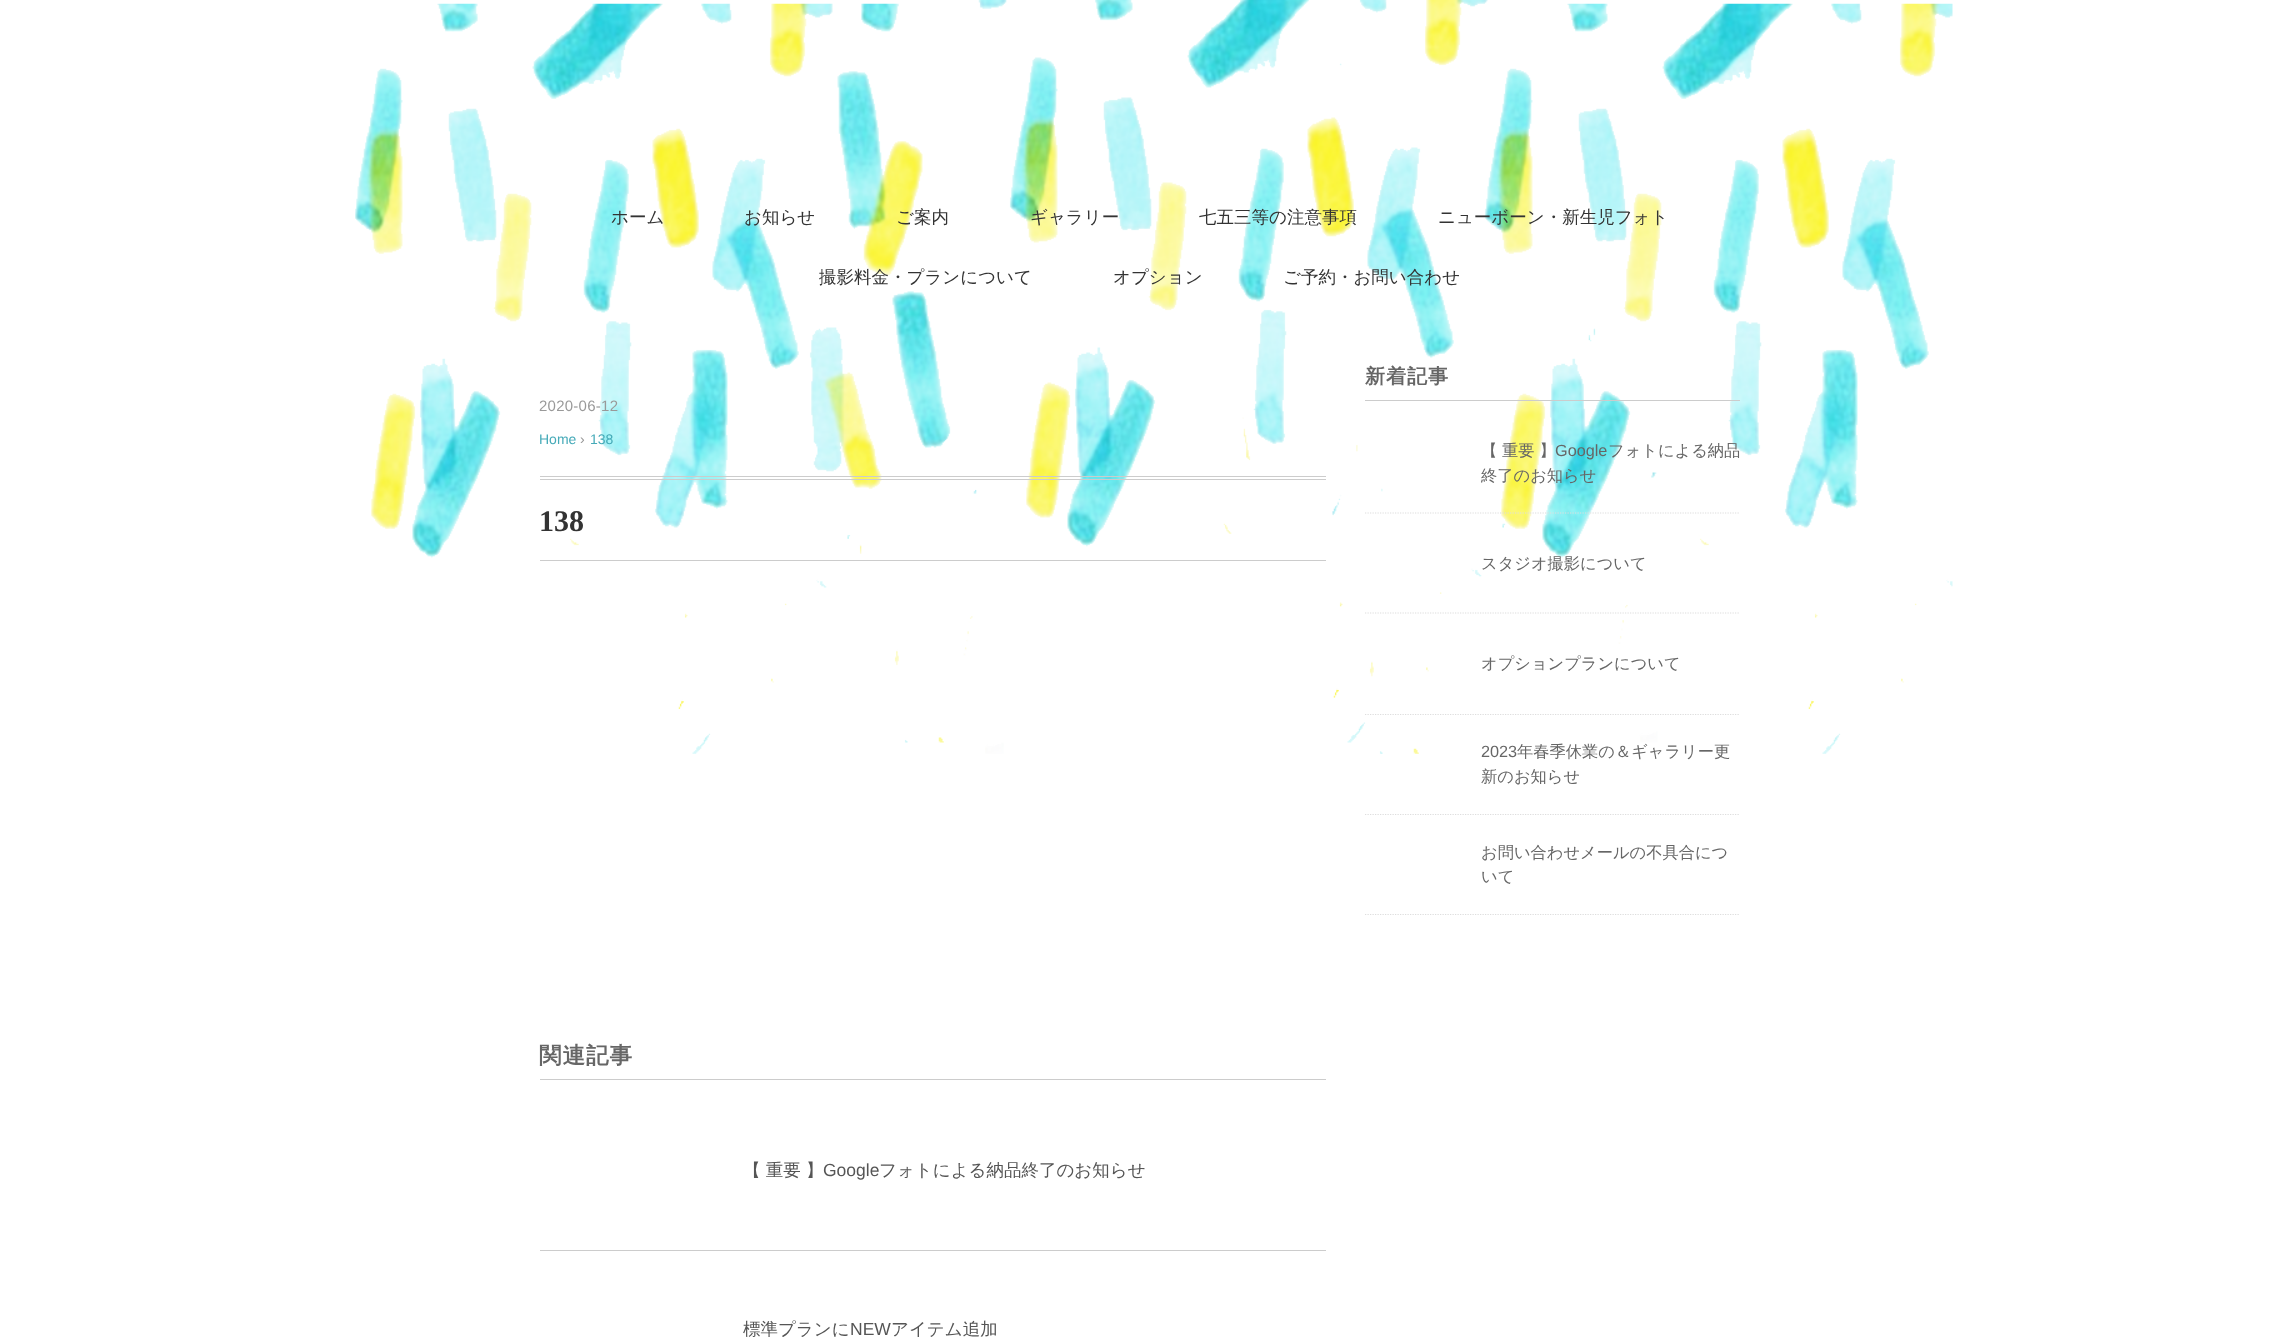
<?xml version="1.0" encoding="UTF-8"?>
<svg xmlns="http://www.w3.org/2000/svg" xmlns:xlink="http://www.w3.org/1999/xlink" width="2278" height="1337">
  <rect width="100%" height="100%" fill="#ffffff" />
  <image x="355" y="0" width="1598" height="754" xlink:href="image1.png" />
  <rect x="540" y="476" width="786" height="1" fill="#cccccc" />
  <rect x="540" y="479" width="786" height="1" fill="#cccccc" />
  <rect x="540" y="560" width="786" height="1" fill="#cccccc" />
  <rect x="540" y="1079" width="786" height="1" fill="#cccccc" />
  <rect x="540" y="1250" width="786" height="1" fill="#cccccc" />
  <rect x="1365" y="400" width="375" height="1" fill="#cccccc" />
  <path d="M 1365 513 h 375" fill="none" stroke="#dddddd" stroke-width="1.2" stroke-dasharray="1.25 1.25" />
  <path d="M 1365 613 h 375" fill="none" stroke="#dddddd" stroke-width="1.2" stroke-dasharray="1.25 1.25" />
  <path d="M 1365 714.5 h 375" fill="none" stroke="#dddddd" stroke-width="1.2" stroke-dasharray="1.25 1.25" />
  <path d="M 1365 814.5 h 375" fill="none" stroke="#dddddd" stroke-width="1.2" stroke-dasharray="1.25 1.25" />
  <path d="M 1365 914.5 h 375" fill="none" stroke="#dddddd" stroke-width="1.2" stroke-dasharray="1.25 1.25" />
  <text x="611" y="223" style="font-family: WenQuanYi Zen Hei; font-size: 17.5px; font-weight: 500; fill: #333333">ホーム</text>
  <text x="744" y="223" style="font-family: WenQuanYi Zen Hei; font-size: 17.5px; font-weight: 500; fill: #333333">お知らせ</text>
  <text x="896" y="223" style="font-family: WenQuanYi Zen Hei; font-size: 17.5px; font-weight: 500; fill: #333333">ご案内</text>
  <text x="1030" y="223" style="font-family: WenQuanYi Zen Hei; font-size: 17.5px; font-weight: 500; fill: #333333">ギャラリー</text>
  <text x="1199" y="223" style="font-family: WenQuanYi Zen Hei; font-size: 17.5px; font-weight: 500; fill: #333333">七五三等の注意事項</text>
  <text x="1438" y="223" style="font-family: WenQuanYi Zen Hei; font-size: 17.5px; font-weight: 500; fill: #333333">ニューボーン・新生児フォト</text>
  <text x="819" y="283" style="font-family: WenQuanYi Zen Hei; font-size: 17.5px; font-weight: 500; fill: #333333">撮影料金・プランについて</text>
  <text x="1113" y="283" style="font-family: WenQuanYi Zen Hei; font-size: 17.5px; font-weight: 500; fill: #333333">オプション</text>
  <text x="1283" y="283" style="font-family: WenQuanYi Zen Hei; font-size: 17.5px; font-weight: 500; fill: #333333">ご予約・お問い合わせ</text>
  <text x="539" y="411" style="font-family: Liberation Sans; font-size: 15px; letter-spacing: 0.25px; fill: #999999">2020-06-12</text>
  <text x="539" y="444" style="font-family: Liberation Sans; font-size: 14px; fill: #45aab8">Home</text>
  <text x="580" y="444" style="font-family: Liberation Sans; font-size: 14px; fill: #999999">›</text>
  <text x="590" y="444" style="font-family: Liberation Sans; font-size: 14px; fill: #45aab8">138</text>
  <text x="539" y="531" style="font-family: Liberation Serif; font-size: 30px; font-weight: bold; fill: #333333">138</text>
  <text x="539" y="1063" style="font-family: WenQuanYi Zen Hei; font-size: 22.5px; font-weight: bold; letter-spacing: 1px; fill: #666666">関連記事</text>
  <text x="743" y="1176" style="font-family: WenQuanYi Zen Hei; font-size: 17.5px; font-weight: 500; fill: #555555">【 重要 】</text>
  <text x="823" y="1176" style="font-family: Liberation Sans; font-size: 17.5px; fill: #555555">Google</text>
  <text x="879" y="1176" style="font-family: WenQuanYi Zen Hei; font-size: 17.5px; font-weight: 500; fill: #555555">フォトによる納品終了のお知らせ</text>
  <text x="743" y="1335" style="font-family: WenQuanYi Zen Hei; font-size: 17.5px; font-weight: 500; fill: #555555">標準プランに</text>
  <text x="850" y="1335" style="font-family: Liberation Sans; font-size: 17.5px; fill: #555555">NEW</text>
  <text x="891" y="1335" style="font-family: WenQuanYi Zen Hei; font-size: 17.5px; font-weight: 500; fill: #555555">アイテム追加</text>
  <text x="1365" y="383" style="font-family: WenQuanYi Zen Hei; font-size: 20px; font-weight: bold; letter-spacing: 1px; fill: #666666">新着記事</text>
  <text x="1481" y="456" style="font-family: WenQuanYi Zen Hei; font-size: 16.25px; font-weight: 500; fill: #666666">【 重要 】</text>
  <text x="1555" y="456" style="font-family: Liberation Sans; font-size: 16.25px; fill: #666666">Google</text>
  <text x="1608" y="456" style="font-family: WenQuanYi Zen Hei; font-size: 16.25px; font-weight: 500; fill: #666666">フォトによる納品</text>
  <text x="1481" y="481" style="font-family: WenQuanYi Zen Hei; font-size: 16.25px; font-weight: 500; fill: #666666">終了のお知らせ</text>
  <text x="1481" y="569" style="font-family: WenQuanYi Zen Hei; font-size: 16.25px; font-weight: 500; fill: #666666">スタジオ撮影について</text>
  <text x="1481" y="669" style="font-family: WenQuanYi Zen Hei; font-size: 16.25px; font-weight: 500; fill: #666666">オプションプランについて</text>
  <text x="1481" y="757" style="font-family: Liberation Sans; font-size: 16.25px; fill: #666666">2023</text>
  <text x="1517" y="757" style="font-family: WenQuanYi Zen Hei; font-size: 16.25px; font-weight: 500; fill: #666666">年春季休業の＆ギャラリー更</text>
  <text x="1481" y="782" style="font-family: WenQuanYi Zen Hei; font-size: 16.25px; font-weight: 500; fill: #666666">新のお知らせ</text>
  <text x="1481" y="858" style="font-family: WenQuanYi Zen Hei; font-size: 16.25px; font-weight: 500; fill: #666666">お問い合わせメールの不具合につ</text>
  <text x="1481" y="882" style="font-family: WenQuanYi Zen Hei; font-size: 16.25px; font-weight: 500; fill: #666666">いて</text>
</svg>
